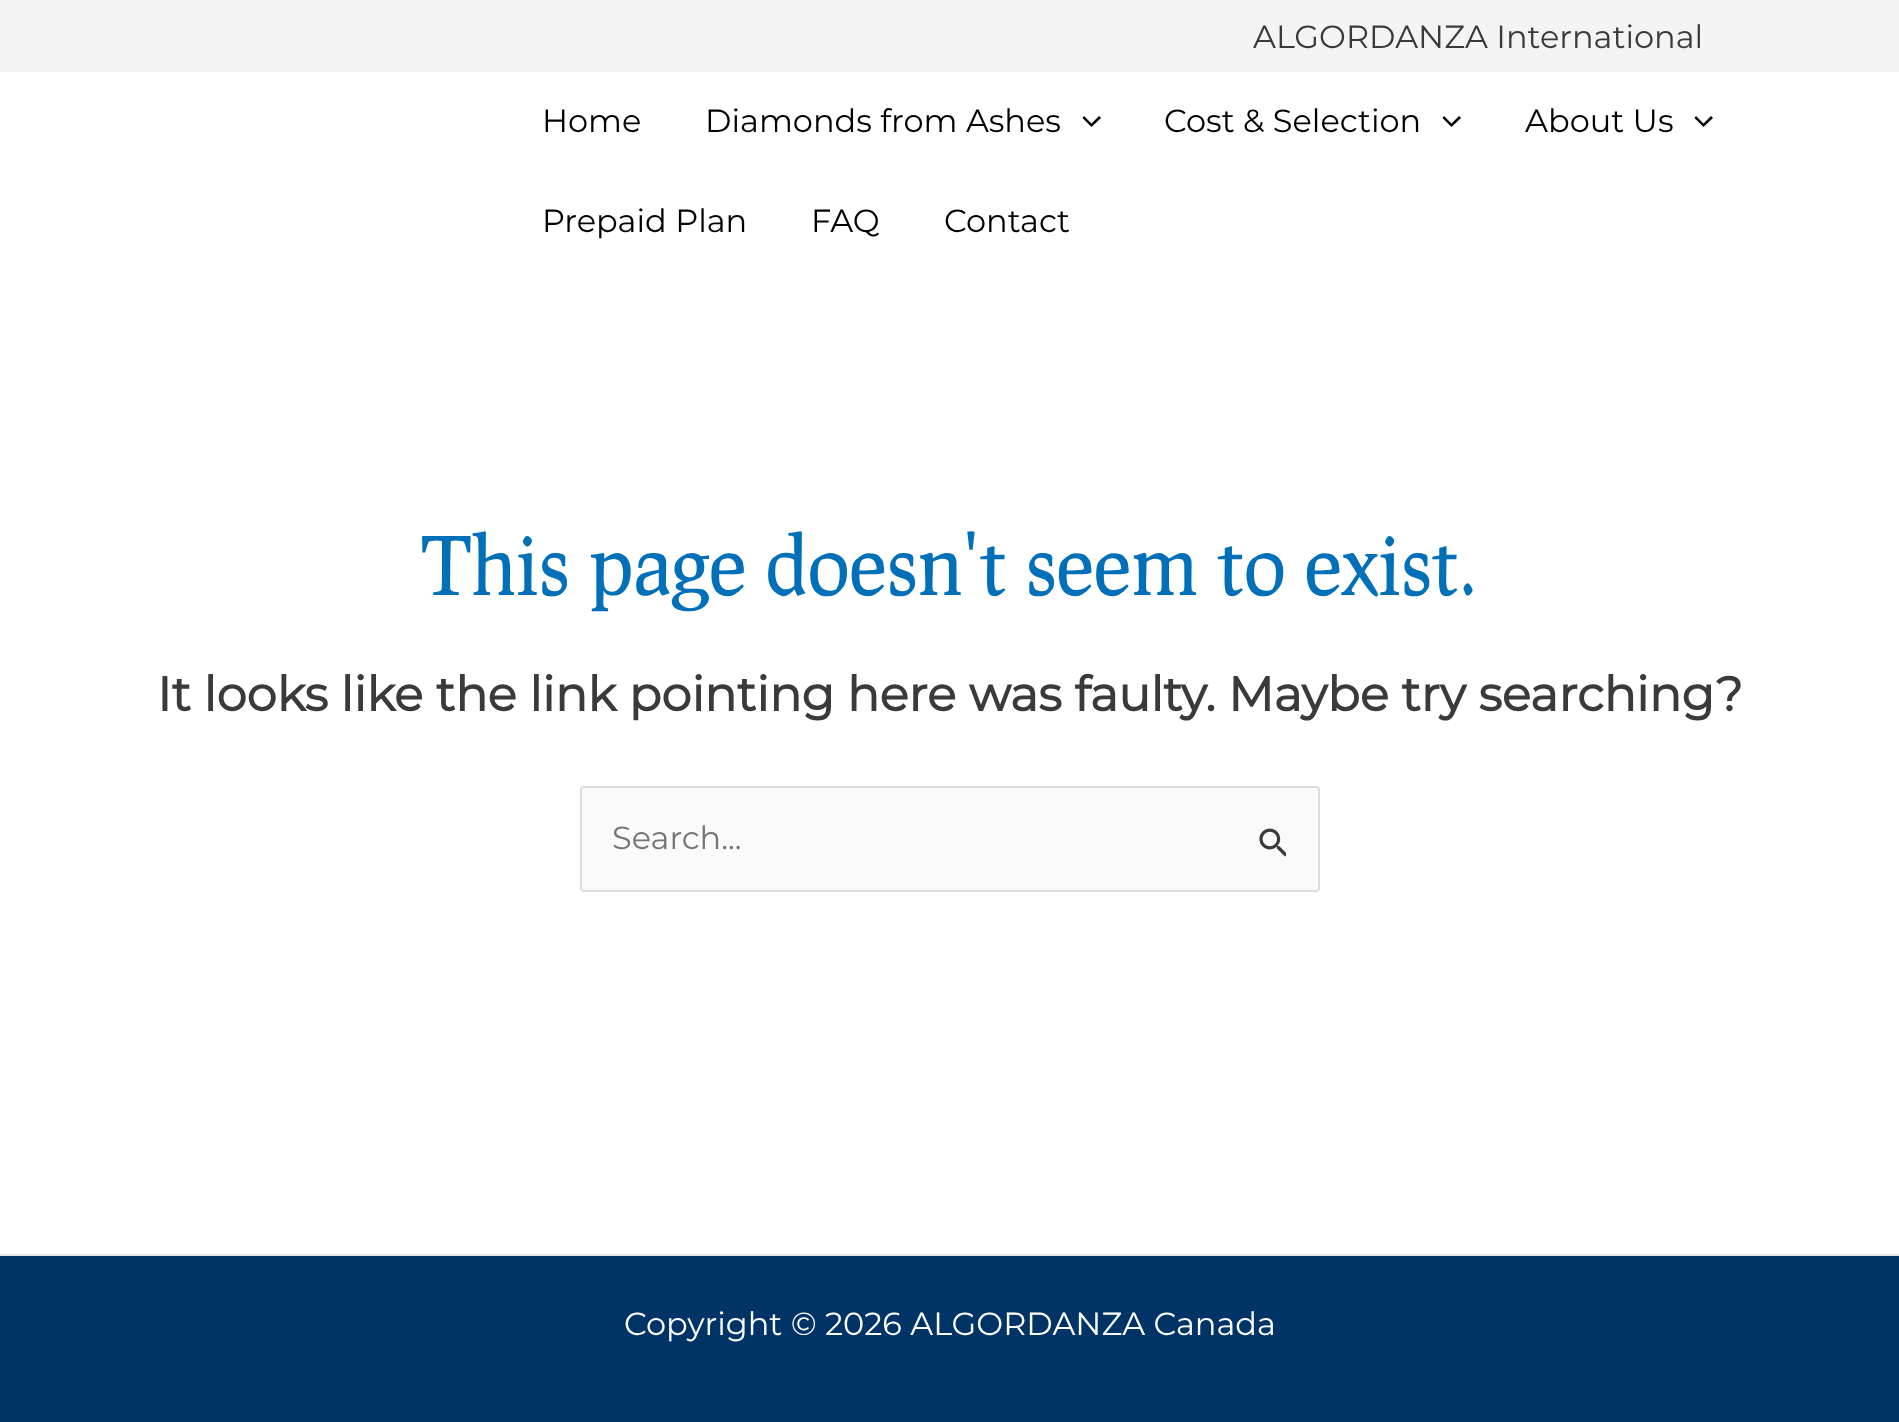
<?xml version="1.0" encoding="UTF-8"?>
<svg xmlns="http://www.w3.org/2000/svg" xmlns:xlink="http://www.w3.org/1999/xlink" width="1899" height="1422">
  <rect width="100%" height="100%" fill="#ffffff" />
  <rect width="1899" height="72" fill="#f4f4f4" />
  <path d="M 1082.5 118 l 9 9 l 9.5 -9 l -2 -2 l -7.5 7.5 l -7.5 -7.5 z" fill="#000000" />
  <path d="M 1442.5 118 l 9 9 l 9.5 -9 l -2 -2 l -7.5 7.5 l -7.5 -7.5 z" fill="#000000" />
  <path d="M 1694.5 118 l 9 9 l 9.5 -9 l -2 -2 l -7.5 7.5 l -7.5 -7.5 z" fill="#000000" />
  <rect x="581" y="787" width="738" height="104" rx="3" fill="#fafafa" stroke="#dddddd" stroke-width="2" />
  <image x="1259" y="828" width="27" height="29" xlink:href="image1.png" />
  <rect y="1256" width="1899" height="166" fill="#003366" />
  <rect y="1254" width="1899" height="2" fill="#e5e5e5" />
  <text x="1253" y="48" style="font-family: Montserrat; font-size: 32px; font-weight: 100; fill: #3a3a3a">ALGORDANZA International</text>
  <text x="542" y="132" style="font-family: Montserrat; font-size: 32px; font-weight: 100; fill: #000000">Home</text>
  <text x="705" y="132" style="font-family: Montserrat; font-size: 32px; font-weight: 100; fill: #000000">Diamonds from Ashes</text>
  <text x="1164" y="132" style="font-family: Montserrat; font-size: 32px; font-weight: 100; fill: #000000">Cost &amp; Selection</text>
  <text x="1525" y="132" style="font-family: Montserrat; font-size: 32px; font-weight: 100; fill: #000000">About Us</text>
  <text x="542" y="232" style="font-family: Montserrat; font-size: 32px; font-weight: 100; fill: #000000">Prepaid Plan</text>
  <text x="811" y="232" style="font-family: Montserrat; font-size: 32px; font-weight: 100; fill: #000000">FAQ</text>
  <text x="944" y="232" style="font-family: Montserrat; font-size: 32px; font-weight: 100; fill: #000000">Contact</text>
  <text x="422" y="595" style="font-family: Prociono; font-size: 80px; fill: #0170b9">This page doesn't seem to exist.</text>
  <text x="157" y="711" style="font-family: Montserrat; font-size: 48px; font-weight: bold; fill: #3a3a3a">It looks like the link pointing here was faulty. Maybe try searching?</text>
  <text x="612" y="849" style="font-family: Montserrat; font-size: 32px; font-weight: 100; fill: #757575">Search...</text>
  <text x="624" y="1335" style="font-family: Montserrat; font-size: 32px; font-weight: 100; fill: #ffffff">Copyright © 2026 ALGORDANZA Canada</text>
</svg>
